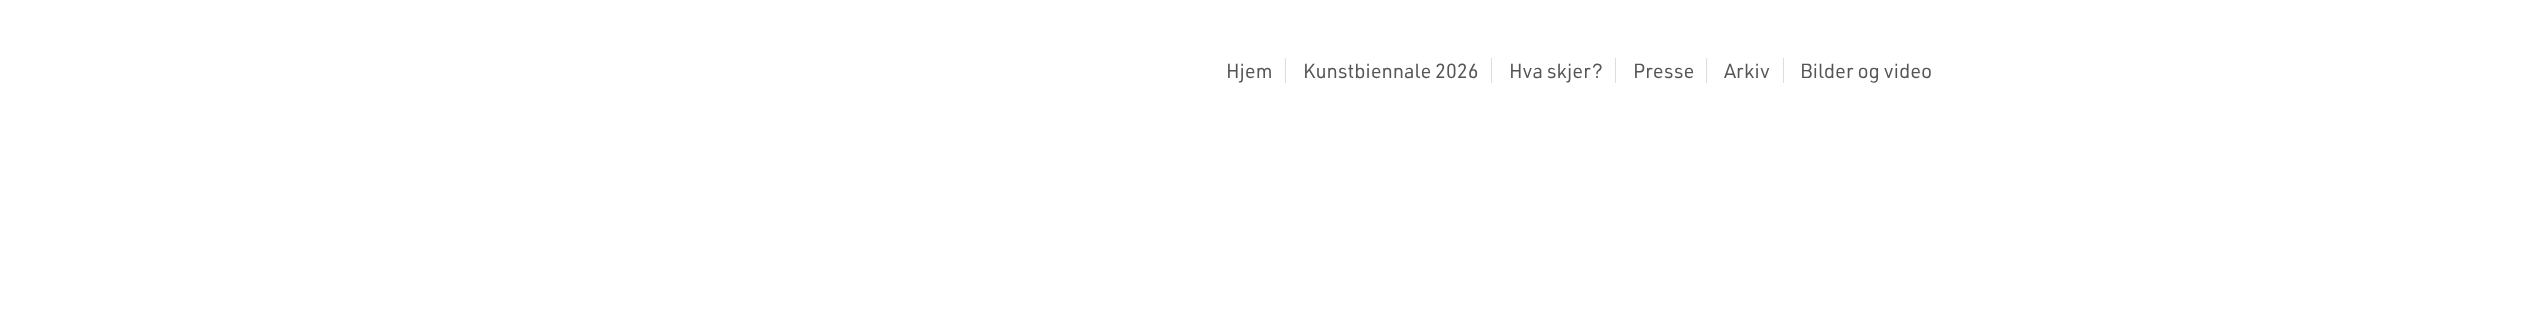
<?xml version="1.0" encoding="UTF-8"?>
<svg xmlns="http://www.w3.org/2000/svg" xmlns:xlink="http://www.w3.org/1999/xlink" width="2527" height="328">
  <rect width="100%" height="100%" fill="#ffffff" />
  <rect x="1285" y="58" width="1" height="25" fill="#dddddd" />
  <rect x="1491" y="58" width="1" height="25" fill="#dddddd" />
  <rect x="1615" y="58" width="1" height="25" fill="#dddddd" />
  <rect x="1706" y="58" width="1" height="25" fill="#dddddd" />
  <rect x="1783" y="58" width="1" height="25" fill="#dddddd" />
  <text x="1226" y="78" style="font-family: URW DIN; font-size: 20px; fill: #555555">Hjem</text>
  <text x="1303" y="78" style="font-family: URW DIN; font-size: 20px; fill: #555555">Kunstbiennale 2026</text>
  <text x="1509" y="78" style="font-family: URW DIN; font-size: 20px; fill: #555555">Hva skjer?</text>
  <text x="1633" y="78" style="font-family: URW DIN; font-size: 20px; fill: #555555">Presse</text>
  <text x="1724" y="78" style="font-family: URW DIN; font-size: 20px; fill: #555555">Arkiv</text>
  <text x="1800" y="78" style="font-family: URW DIN; font-size: 20px; fill: #555555">Bilder og video</text>
</svg>
